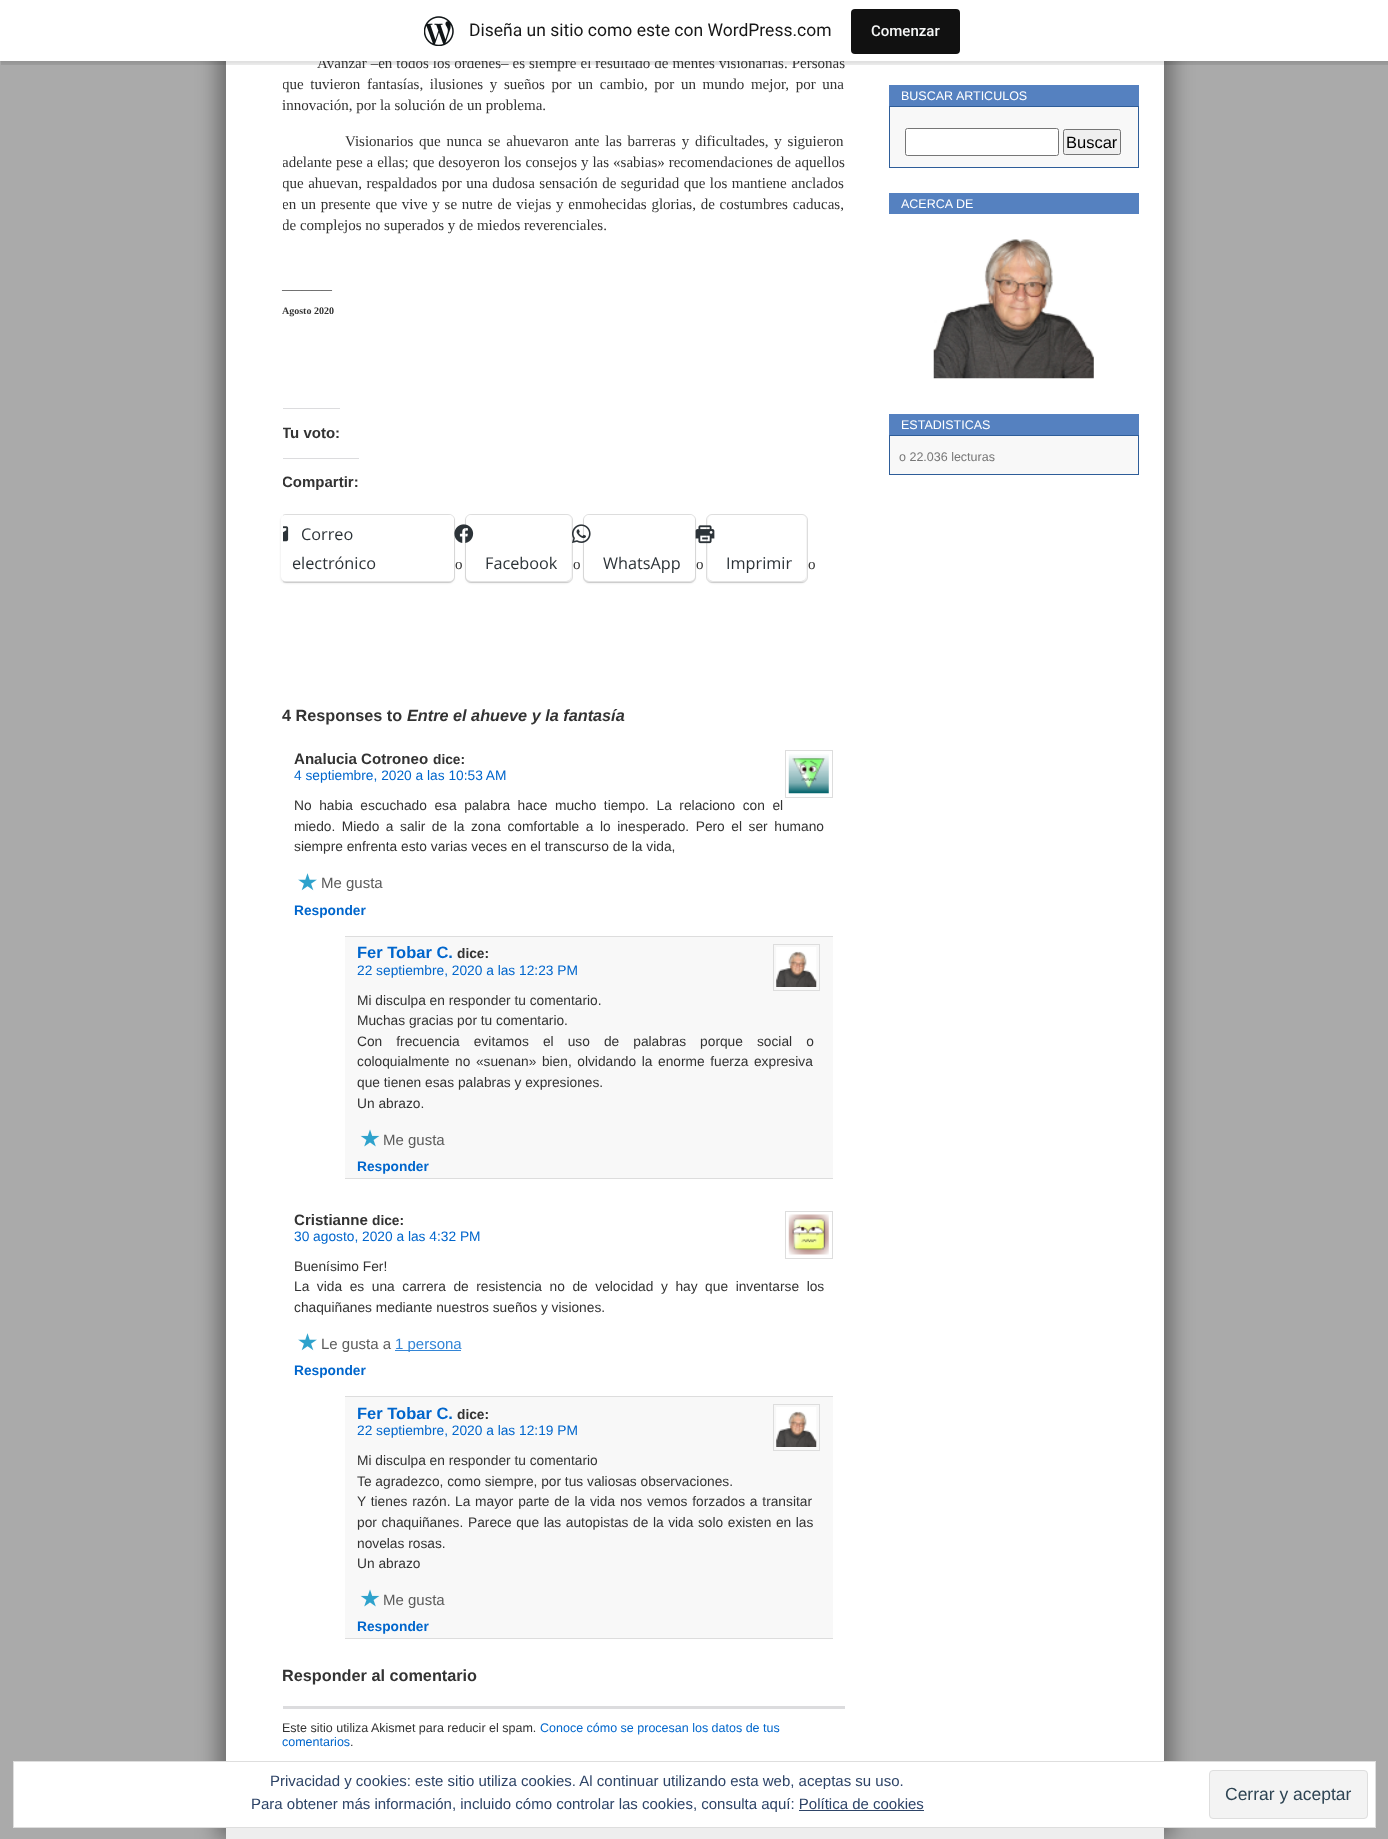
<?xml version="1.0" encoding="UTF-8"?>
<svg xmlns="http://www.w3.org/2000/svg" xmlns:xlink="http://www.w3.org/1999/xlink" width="1388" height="1839">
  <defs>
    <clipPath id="clip1"><rect x="283" width="562" height="669" /></clipPath>
    <clipPath id="clip2"><path d="M 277 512 h 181 v 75 h -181 z m 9 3 h 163 c 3 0 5 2 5 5 v 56 c 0 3 -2 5 -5 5 h -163 c -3 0 -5 -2 -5 -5 v -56 c 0 -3 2 -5 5 -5 z" clip-rule="evenodd" /></clipPath>
  </defs>
  <rect width="100%" height="100%" fill="#aaaaaa" />
  <rect x="216" y="-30" width="938" height="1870" fill="#000000" fill-opacity="0.3" filter="blur(10px)" />
  <rect x="236" y="-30" width="938" height="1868" fill="#000000" fill-opacity="0.3" filter="blur(10px)" />
  <rect x="226" y="61" width="938" height="1700" fill="#ffffff" />
  <rect y="1" width="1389" height="62" fill="#000000" fill-opacity="0.05" filter="blur(1px)" />
  <path d="M 1 61 v 4 h 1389 v -61 h -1 v 57 z" fill="#000000" fill-opacity="0.08" />
  <rect x="283" y="408" width="57" height="1" fill="#dcdcde" />
  <rect x="283" y="458" width="76" height="1" fill="#dcdcde" />
  <g clip-path="url(#clip1)">
    <rect x="280.5" y="514.5" width="174" height="68" rx="5.5" fill="none" stroke="#e0e0e0" />
  </g>
  <g clip-path="url(#clip2)">
    <rect x="281" y="516" width="173" height="67" rx="5" fill="#000000" fill-opacity="0.12" filter="blur(1px)" />
  </g>
  <g clip-path="url(#clip1)">
    <rect x="281" y="515" width="173" height="66" rx="5" fill="#ffffff" />
  </g>
  <image x="283" y="526" width="6" height="16" xlink:href="image2.png" />
  <rect x="465.5" y="514.5" width="107" height="68" rx="5.5" fill="none" stroke="#e0e0e0" />
  <rect x="466" y="516" width="105" height="67" rx="5" fill="#000000" fill-opacity="0.12" filter="blur(1px)" />
  <rect x="466" y="515" width="105" height="66" rx="5" fill="#ffffff" />
  <image x="454" y="524" width="20" height="19" xlink:href="image3.png" />
  <rect x="583.5" y="514.5" width="112" height="68" rx="5.5" fill="none" stroke="#e0e0e0" />
  <rect x="584" y="516" width="111" height="67" rx="5" fill="#000000" fill-opacity="0.12" filter="blur(1px)" />
  <rect x="584" y="515" width="111" height="66" rx="5" fill="#ffffff" />
  <image x="572" y="524" width="19" height="19" xlink:href="image4.png" />
  <rect x="706.5" y="514.5" width="101" height="68" rx="5.5" fill="none" stroke="#e0e0e0" />
  <rect x="708" y="516" width="98" height="67" rx="5" fill="#000000" fill-opacity="0.12" filter="blur(1px)" />
  <rect x="708" y="515" width="98" height="66" rx="5" fill="#ffffff" />
  <image x="695" y="525" width="20" height="19" xlink:href="image5.png" />
  <rect x="785.5" y="750.5" width="47" height="47" fill="none" stroke="#dddddd" />
  <image x="788" y="754" width="41" height="40" xlink:href="image6.png" />
  <image x="298" y="873" width="19" height="18" xlink:href="image7.png" />
  <rect x="345" y="937" width="488" height="241" fill="#f8f8f8" />
  <rect x="345" y="936" width="488" height="1" fill="#dddddd" />
  <rect x="345" y="1178" width="488" height="1" fill="#dddddd" />
  <rect x="773.5" y="944.5" width="46" height="46" fill="none" stroke="#dddddd" />
  <image x="776" y="947" width="41" height="40" xlink:href="image8.png" />
  <image x="360" y="1129" width="20" height="18" xlink:href="image9.png" />
  <rect x="785.5" y="1211.5" width="47" height="47" fill="none" stroke="#dddddd" />
  <image x="788" y="1214" width="41" height="41" xlink:href="image10.png" />
  <image x="298" y="1333" width="19" height="18" xlink:href="image7.png" />
  <rect x="395" y="1350" width="66" height="1" fill="#3385d6" />
  <rect x="345" y="1397" width="488" height="241" fill="#f8f8f8" />
  <rect x="345" y="1396" width="488" height="1" fill="#dddddd" />
  <rect x="345" y="1638" width="488" height="1" fill="#dddddd" />
  <rect x="773.5" y="1404.5" width="46" height="46" fill="none" stroke="#dddddd" />
  <image x="776" y="1407" width="41" height="40" xlink:href="image8.png" />
  <image x="360" y="1589" width="20" height="18" xlink:href="image9.png" />
  <rect x="283" y="1706" width="562" height="3" fill="#dcdcde" />
  <rect x="889" y="85" width="250" height="21" fill="#5581c0" />
  <rect x="889.5" y="106.5" width="249" height="61" fill="#f8f8f8" stroke="#2e5d99" />
  <rect x="905.5" y="128.5" width="153" height="27" rx="2" fill="#ffffff" stroke="#767676" />
  <rect x="1063.5" y="129.5" width="57" height="25" rx="2" fill="#efefef" stroke="#767676" />
  <rect x="889" y="193" width="250" height="21" fill="#5581c0" />
  <image x="933" y="239" width="161" height="140" xlink:href="image11.png" />
  <rect x="889" y="414" width="250" height="21" fill="#5581c0" />
  <rect x="889.5" y="435.5" width="249" height="39" fill="#f8f8f8" stroke="#2e5d99" />
  <rect x="226" y="1828" width="938" height="11" fill="#eeeeee" />
  <rect x="13.5" y="1761.5" width="1362" height="66" fill="#ffffff" stroke="#dedede" />
  <rect x="1209.5" y="1770.5" width="158" height="48" rx="3.5" fill="#f3f3f3" stroke="#dedede" />
  <rect x="799" y="1810" width="125" height="1" fill="#2e4467" />
  <text x="317" y="68" word-spacing="0.25" style="font-family: Liberation Serif; font-size: 15px; fill: #333333">Avanzar –en todos los órdenes– es siempre el resultado de mentes visionarias. Personas</text>
  <rect width="1388" height="61" fill="#ffffff" />
  <image x="424" y="16" width="30" height="30" xlink:href="image1.png" />
  <text x="469" y="36" style="font-family: Roboto; font-size: 17.5px; fill: #171717">Diseña un sitio como este con WordPress.com</text>
  <rect x="851" y="9" width="109" height="45" rx="4" fill="#111111" />
  <text x="871" y="36" style="font-family: Roboto; font-size: 15px; font-weight: 500; fill: #f6f7f7">Comenzar</text>
  <g clip-path="url(#clip1)">
    <text x="282" y="89" word-spacing="2.9" style="font-family: Liberation Serif; font-size: 15px; fill: #333333">que tuvieron fantasías, ilusiones y sueños por un cambio, por un mundo mejor, por una</text>
  </g>
  <text x="282" y="110" style="font-family: Liberation Serif; font-size: 15px; fill: #333333">innovación, por la solución de un problema.</text>
  <text x="345" y="146" word-spacing="2" style="font-family: Liberation Serif; font-size: 15px; fill: #333333">Visionarios que nunca se ahuevaron ante las barreras y dificultades, y siguieron</text>
  <g clip-path="url(#clip1)">
    <text x="282" y="167" word-spacing="0.2" style="font-family: Liberation Serif; font-size: 15px; fill: #333333">adelante pese a ellas; que desoyeron los consejos y las «sabias» recomendaciones de aquellos</text>
    <text x="282" y="188" word-spacing="0.75" style="font-family: Liberation Serif; font-size: 15px; fill: #333333">que ahuevan, respaldados por una dudosa sensación de seguridad que los mantiene anclados</text>
    <text x="282" y="209" word-spacing="1" style="font-family: Liberation Serif; font-size: 15px; fill: #333333">en un presente que vive y se nutre de viejas y enmohecidas glorias, de costumbres caducas,</text>
    <text x="282" y="230" style="font-family: Liberation Serif; font-size: 15px; fill: #333333">de complejos no superados y de miedos reverenciales.</text>
  </g>
  <text x="282" y="293" style="font-family: Liberation Serif; font-size: 10px; font-weight: bold; fill: #333333">—————</text>
  <text x="282" y="314" style="font-family: Liberation Serif; font-size: 10px; font-weight: bold; fill: #333333">Agosto 2020</text>
  <g clip-path="url(#clip1)">
    <text x="282" y="438" style="font-family: Liberation Sans; font-size: 15px; font-weight: bold; fill: #333333">Tu voto:</text>
    <text x="282" y="487" style="font-family: Liberation Sans; font-size: 15px; font-weight: bold; fill: #333333">Compartir:</text>
  </g>
  <text x="301" y="540" style="font-family: Open Sans; font-size: 16.25px; fill: #2c3338">Correo</text>
  <text x="292" y="569" style="font-family: Open Sans; font-size: 16.25px; fill: #2c3338">electrónico</text>
  <text x="455" y="569" style="font-family: Liberation Serif; font-size: 15px; fill: #333333">o</text>
  <text x="485" y="569" style="font-family: Open Sans; font-size: 16.25px; fill: #2c3338">Facebook</text>
  <text x="573" y="569" style="font-family: Liberation Serif; font-size: 15px; fill: #333333">o</text>
  <text x="603" y="569" style="font-family: Open Sans; font-size: 16.25px; fill: #2c3338">WhatsApp</text>
  <text x="696" y="569" style="font-family: Liberation Serif; font-size: 15px; fill: #333333">o</text>
  <text x="726" y="569" style="font-family: Open Sans; font-size: 16.25px; fill: #2c3338">Imprimir</text>
  <text x="808" y="569" style="font-family: Liberation Serif; font-size: 15px; fill: #333333">o</text>
  <text x="282" y="721" style="font-family: Liberation Sans; font-size: 16.25px; font-weight: bold; fill: #333333">4 Responses to</text>
  <text x="407" y="721" style="font-family: Liberation Sans; font-size: 16.25px; font-weight: bold; font-style: italic; fill: #333333">Entre el ahueve y la fantasía</text>
  <text x="294" y="764" style="font-family: Liberation Sans; font-size: 15.1px; font-weight: bold; fill: #333333">Analucia Cotroneo</text>
  <text x="433" y="764" style="font-family: Liberation Sans; font-size: 13.75px; font-weight: bold; fill: #333333">dice:</text>
  <text x="294" y="780" style="font-family: Liberation Sans; font-size: 13.75px; fill: #0066cc">4 septiembre, 2020 a las 10:53 AM</text>
  <text x="294" y="810" word-spacing="3.75" style="font-family: Liberation Sans; font-size: 13.75px; fill: #333333">No habia escuchado esa palabra hace mucho tiempo. La relaciono con el</text>
  <text x="294" y="831" word-spacing="2.75" style="font-family: Liberation Sans; font-size: 13.75px; fill: #333333">miedo. Miedo a salir de la zona comfortable a lo inesperado. Pero el ser humano</text>
  <text x="294" y="851" style="font-family: Liberation Sans; font-size: 13.75px; fill: #333333">siempre enfrenta esto varias veces en el transcurso de la vida,</text>
  <text x="321" y="888" style="font-family: Liberation Sans; font-size: 15px; fill: #5c5c5c">Me gusta</text>
  <text x="294" y="915" style="font-family: Liberation Sans; font-size: 13.75px; font-weight: bold; fill: #0066cc">Responder</text>
  <text x="357" y="958" style="font-family: Liberation Sans; font-size: 16.5px; font-weight: bold; fill: #0066cc">Fer Tobar C.</text>
  <text x="457" y="958" style="font-family: Liberation Sans; font-size: 13.75px; font-weight: bold; fill: #333333">dice:</text>
  <text x="357" y="975" style="font-family: Liberation Sans; font-size: 13.75px; fill: #0066cc">22 septiembre, 2020 a las 12:23 PM</text>
  <text x="357" y="1005" style="font-family: Liberation Sans; font-size: 13.75px; fill: #333333">Mi disculpa en responder tu comentario.</text>
  <text x="357" y="1025" style="font-family: Liberation Sans; font-size: 13.75px; fill: #333333">Muchas gracias por tu comentario.</text>
  <text x="357" y="1046" word-spacing="10.25" style="font-family: Liberation Sans; font-size: 13.75px; fill: #333333">Con frecuencia evitamos el uso de palabras porque social o</text>
  <text x="357" y="1066" word-spacing="1.75" style="font-family: Liberation Sans; font-size: 13.75px; fill: #333333">coloquialmente no «suenan» bien, olvidando la enorme fuerza expresiva</text>
  <text x="357" y="1087" style="font-family: Liberation Sans; font-size: 13.75px; fill: #333333">que tienen esas palabras y expresiones.</text>
  <text x="357" y="1108" style="font-family: Liberation Sans; font-size: 13.75px; fill: #333333">Un abrazo.</text>
  <text x="383" y="1145" style="font-family: Liberation Sans; font-size: 15px; fill: #5c5c5c">Me gusta</text>
  <text x="357" y="1171" style="font-family: Liberation Sans; font-size: 13.75px; font-weight: bold; fill: #0066cc">Responder</text>
  <text x="294" y="1225" style="font-family: Liberation Sans; font-size: 15.1px; font-weight: bold; fill: #333333">Cristianne</text>
  <text x="372" y="1225" style="font-family: Liberation Sans; font-size: 13.75px; font-weight: bold; fill: #333333">dice:</text>
  <text x="294" y="1241" style="font-family: Liberation Sans; font-size: 13.75px; fill: #0066cc">30 agosto, 2020 a las 4:32 PM</text>
  <text x="294" y="1271" style="font-family: Liberation Sans; font-size: 13.75px; fill: #333333">Buenísimo Fer!</text>
  <text x="294" y="1291" word-spacing="3.75" style="font-family: Liberation Sans; font-size: 13.75px; fill: #333333">La vida es una carrera de resistencia no de velocidad y hay que inventarse los</text>
  <text x="294" y="1312" style="font-family: Liberation Sans; font-size: 13.75px; fill: #333333">chaquiñanes mediante nuestros sueños y visiones.</text>
  <text x="321" y="1349" style="font-family: Liberation Sans; font-size: 15px; fill: #5c5c5c">Le gusta a</text>
  <text x="395" y="1349" style="font-family: Liberation Sans; font-size: 15px; fill: #3385d6">1 persona</text>
  <text x="294" y="1375" style="font-family: Liberation Sans; font-size: 13.75px; font-weight: bold; fill: #0066cc">Responder</text>
  <text x="357" y="1419" style="font-family: Liberation Sans; font-size: 16.5px; font-weight: bold; fill: #0066cc">Fer Tobar C.</text>
  <text x="457" y="1419" style="font-family: Liberation Sans; font-size: 13.75px; font-weight: bold; fill: #333333">dice:</text>
  <text x="357" y="1435" style="font-family: Liberation Sans; font-size: 13.75px; fill: #0066cc">22 septiembre, 2020 a las 12:19 PM</text>
  <text x="357" y="1465" style="font-family: Liberation Sans; font-size: 13.75px; fill: #333333">Mi disculpa en responder tu comentario</text>
  <text x="357" y="1486" style="font-family: Liberation Sans; font-size: 13.75px; fill: #333333">Te agradezco, como siempre, por tus valiosas observaciones.</text>
  <text x="357" y="1506" word-spacing="1" style="font-family: Liberation Sans; font-size: 13.75px; fill: #333333">Y tienes razón.</text>
  <text x="455" y="1506" word-spacing="1" style="font-family: Liberation Sans; font-size: 13.75px; fill: #333333">La mayor parte de la vida nos vemos forzados a transitar</text>
  <text x="357" y="1527" word-spacing="0.75" style="font-family: Liberation Sans; font-size: 13.75px; fill: #333333">por chaquiñanes.</text>
  <text x="468" y="1527" word-spacing="0.75" style="font-family: Liberation Sans; font-size: 13.75px; fill: #333333">Parece que las autopistas de la vida solo existen en las</text>
  <text x="357" y="1548" style="font-family: Liberation Sans; font-size: 13.75px; fill: #333333">novelas rosas.</text>
  <text x="357" y="1568" style="font-family: Liberation Sans; font-size: 13.75px; fill: #333333">Un abrazo</text>
  <text x="383" y="1605" style="font-family: Liberation Sans; font-size: 15px; fill: #5c5c5c">Me gusta</text>
  <text x="357" y="1631" style="font-family: Liberation Sans; font-size: 13.75px; font-weight: bold; fill: #0066cc">Responder</text>
  <text x="282" y="1681" style="font-family: Liberation Sans; font-size: 16.25px; font-weight: bold; fill: #333333">Responder al comentario</text>
  <text x="282" y="1732" style="font-family: Liberation Sans; font-size: 12.5px; fill: #333333">Este sitio utiliza Akismet para reducir el spam.</text>
  <text x="540" y="1732" style="font-family: Liberation Sans; font-size: 12.5px; fill: #0066cc">Conoce cómo se procesan los datos de tus</text>
  <text x="282" y="1746" style="font-family: Liberation Sans; font-size: 12.5px; fill: #0066cc">comentarios</text>
  <text x="350" y="1746" style="font-family: Liberation Sans; font-size: 12.5px; fill: #333333">.</text>
  <text x="901" y="100" style="font-family: Liberation Sans; font-size: 12.5px; fill: #ffffff">BUSCAR ARTICULOS</text>
  <text x="1066" y="148" style="font-family: Liberation Sans; font-size: 16.5px; fill: #000000">Buscar</text>
  <text x="901" y="208" style="font-family: Liberation Sans; font-size: 12.5px; fill: #ffffff">ACERCA DE</text>
  <text x="901" y="429" style="font-family: Liberation Sans; font-size: 12.5px; fill: #ffffff">ESTADISTICAS</text>
  <text x="899" y="461" style="font-family: Liberation Sans; font-size: 12.5px; fill: #777777">o 22.036 lecturas</text>
  <text x="270" y="1786" style="font-family: Liberation Sans; font-size: 15px; fill: #2e4467">Privacidad y cookies: este sitio utiliza cookies. Al continuar utilizando esta web, aceptas su uso.</text>
  <text x="251" y="1809" style="font-family: Liberation Sans; font-size: 15px; fill: #2e4467">Para obtener más información, incluido cómo controlar las cookies, consulta aquí: Política de cookies</text>
  <text x="1225" y="1800" style="font-family: Liberation Sans; font-size: 17.5px; fill: #2e4453">Cerrar y aceptar</text>
</svg>
